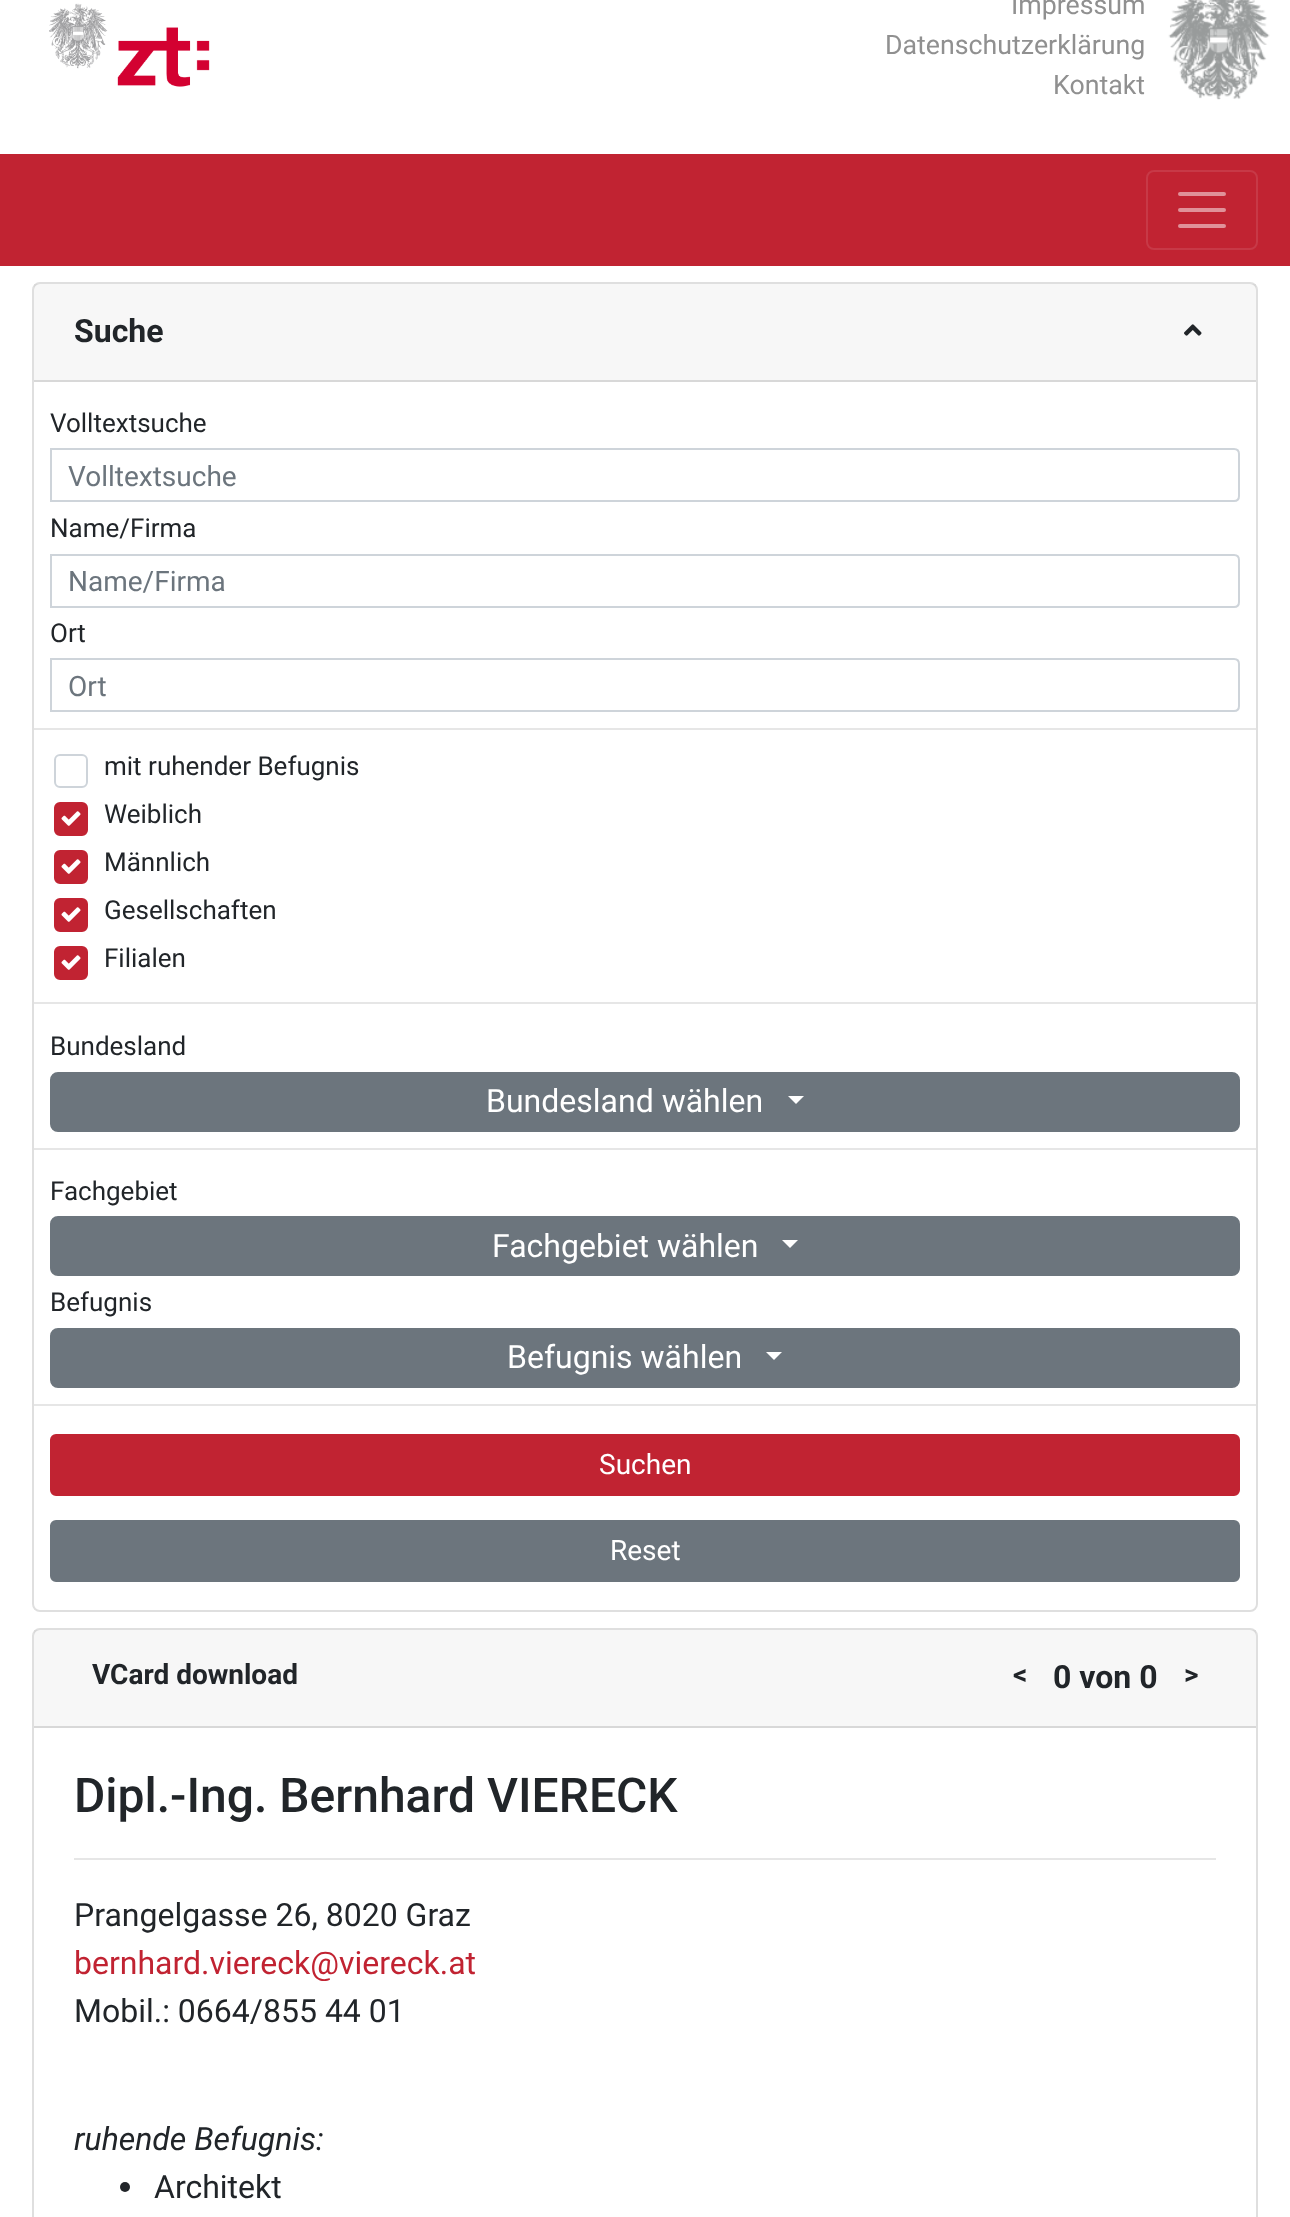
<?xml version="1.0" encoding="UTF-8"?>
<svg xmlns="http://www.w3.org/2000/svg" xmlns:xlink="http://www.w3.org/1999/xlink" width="1290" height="2217">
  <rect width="100%" height="100%" fill="#ffffff" />
  <image x="49" y="3" width="161" height="84" xlink:href="image1.png" />
  <image x="1168" y="0" width="102" height="100" xlink:href="image2.png" />
  <rect y="154" width="1290" height="112" fill="#c12332" />
  <rect x="1147" y="171" width="110" height="78" rx="7" fill="none" stroke="#c73947" stroke-width="2" />
  <path d="M 1180 194 h 44 m -44 16 h 44 m -44 16 h 44" fill="none" stroke="#e09199" stroke-width="4" stroke-linecap="round" />
  <rect x="33" y="283" width="1224" height="1328" rx="7" fill="none" stroke="#dfdfdf" stroke-width="2" />
  <rect x="34" y="284" width="1222" height="96" fill="#000000" fill-opacity="0.03" />
  <rect x="34" y="380" width="1222" height="2" fill="#d8d8d8" />
  <image x="1184" y="324" width="18" height="12" xlink:href="image3.png" />
  <path d="M 51 449 h 1183 c 3 0 5 2 5 5 v 42 c 0 3 -2 5 -5 5 h -1183 z" fill="none" stroke="#ced4da" stroke-width="2" />
  <path d="M 51 555 h 1183 c 3 0 5 2 5 5 v 42 c 0 3 -2 5 -5 5 h -1183 z" fill="none" stroke="#ced4da" stroke-width="2" />
  <path d="M 51 659 h 1183 c 3 0 5 2 5 5 v 42 c 0 3 -2 5 -5 5 h -1183 z" fill="none" stroke="#ced4da" stroke-width="2" />
  <rect x="34" y="728" width="1222" height="2" fill="#e6e6e6" />
  <rect x="55" y="755" width="32" height="32" rx="5" fill="none" stroke="#ced4da" stroke-width="2" />
  <rect x="55" y="803" width="32" height="32" rx="5" fill="#c12332" stroke="#c12332" stroke-width="2" />
  <image x="61" y="811" width="20" height="15" xlink:href="image4.png" />
  <rect x="55" y="851" width="32" height="32" rx="5" fill="#c12332" stroke="#c12332" stroke-width="2" />
  <image x="61" y="859" width="20" height="15" xlink:href="image4.png" />
  <rect x="55" y="899" width="32" height="32" rx="5" fill="#c12332" stroke="#c12332" stroke-width="2" />
  <image x="61" y="907" width="20" height="15" xlink:href="image4.png" />
  <rect x="55" y="947" width="32" height="32" rx="5" fill="#c12332" stroke="#c12332" stroke-width="2" />
  <image x="61" y="955" width="20" height="15" xlink:href="image4.png" />
  <rect x="34" y="1002" width="1222" height="2" fill="#e6e6e6" />
  <rect x="51" y="1073" width="1188" height="58" rx="7" fill="#6c757d" stroke="#6c757d" stroke-width="2" />
  <path d="M 788 1096 h 16 l -8 8 z" fill="#ffffff" />
  <rect x="34" y="1148" width="1222" height="2" fill="#e6e6e6" />
  <rect x="51" y="1217" width="1188" height="58" rx="7" fill="#6c757d" stroke="#6c757d" stroke-width="2" />
  <path d="M 782 1240 h 16 l -8 8 z" fill="#ffffff" />
  <rect x="51" y="1329" width="1188" height="58" rx="7" fill="#6c757d" stroke="#6c757d" stroke-width="2" />
  <path d="M 766 1352 h 16 l -8 8 z" fill="#ffffff" />
  <rect x="34" y="1404" width="1222" height="2" fill="#e6e6e6" />
  <rect x="51" y="1435" width="1188" height="60" rx="5" fill="#c12332" stroke="#c12332" stroke-width="2" />
  <rect x="51" y="1521" width="1188" height="60" rx="5" fill="#6c757d" stroke="#6c757d" stroke-width="2" />
  <rect x="33" y="1629" width="1224" height="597" rx="7" fill="none" stroke="#dfdfdf" stroke-width="2" />
  <rect x="34" y="1630" width="1222" height="96" fill="#000000" fill-opacity="0.03" />
  <rect x="34" y="1726" width="1222" height="2" fill="#d8d8d8" />
  <rect x="74" y="1858" width="1142" height="2" fill="#e6e6e6" />
  <circle cx="125" cy="2187" r="5" fill="#212529" />
  <text x="1011" y="14" style="font-family: Roboto; font-size: 26.75px; fill: #909090">Impressum</text>
  <text x="885" y="54" style="font-family: Roboto; font-size: 26.75px; fill: #909090">Datenschutzerklärung</text>
  <text x="1053" y="94" style="font-family: Roboto; font-size: 26.75px; fill: #909090">Kontakt</text>
  <text x="74" y="342" style="font-family: Roboto; font-size: 32px; font-weight: bold; fill: #212529">Suche</text>
  <text x="50" y="432" style="font-family: Roboto; font-size: 26px; fill: #212529">Volltextsuche</text>
  <text x="68" y="486" style="font-family: Roboto; font-size: 28px; fill: #6c757d">Volltextsuche</text>
  <text x="50" y="537" style="font-family: Roboto; font-size: 26px; fill: #212529">Name/Firma</text>
  <text x="68" y="591" style="font-family: Roboto; font-size: 28px; fill: #6c757d">Name/Firma</text>
  <text x="50" y="642" style="font-family: Roboto; font-size: 26px; fill: #212529">Ort</text>
  <text x="68" y="696" style="font-family: Roboto; font-size: 28px; fill: #6c757d">Ort</text>
  <text x="104" y="775" style="font-family: Roboto; font-size: 26px; fill: #212529">mit ruhender Befugnis</text>
  <text x="104" y="823" style="font-family: Roboto; font-size: 26px; fill: #212529">Weiblich</text>
  <text x="104" y="871" style="font-family: Roboto; font-size: 26px; fill: #212529">Männlich</text>
  <text x="104" y="919" style="font-family: Roboto; font-size: 26px; fill: #212529">Gesellschaften</text>
  <text x="104" y="967" style="font-family: Roboto; font-size: 26px; fill: #212529">Filialen</text>
  <text x="50" y="1055" style="font-family: Roboto; font-size: 26px; fill: #212529">Bundesland</text>
  <text x="486" y="1112" style="font-family: Roboto; font-size: 32px; fill: #ffffff">Bundesland wählen</text>
  <text x="50" y="1200" style="font-family: Roboto; font-size: 26px; fill: #212529">Fachgebiet</text>
  <text x="492" y="1257" style="font-family: Roboto; font-size: 32px; fill: #ffffff">Fachgebiet wählen</text>
  <text x="50" y="1311" style="font-family: Roboto; font-size: 26px; fill: #212529">Befugnis</text>
  <text x="507" y="1368" style="font-family: Roboto; font-size: 32px; fill: #ffffff">Befugnis wählen</text>
  <text x="599" y="1474" style="font-family: Roboto; font-size: 28px; fill: #ffffff">Suchen</text>
  <text x="610" y="1560" style="font-family: Roboto; font-size: 28px; fill: #ffffff">Reset</text>
  <text x="92" y="1684" style="font-family: Roboto; font-size: 28px; font-weight: bold; fill: #212529">VCard download</text>
  <text x="1013" y="1684" style="font-family: Roboto; font-size: 28px; font-weight: bold; fill: #212529">&lt;</text>
  <text x="1053" y="1688" style="font-family: Roboto; font-size: 32px; font-weight: bold; fill: #212529">0 von 0</text>
  <text x="1184" y="1684" style="font-family: Roboto; font-size: 28px; font-weight: bold; fill: #212529">&gt;</text>
  <text x="74" y="1812" style="font-family: Roboto; font-size: 48px; font-weight: 500; fill: #212529">Dipl.-Ing. Bernhard VIERECK</text>
  <text x="74" y="1926" style="font-family: Roboto; font-size: 32px; fill: #212529">Prangelgasse 26, 8020 Graz</text>
  <text x="74" y="1974" style="font-family: Roboto; font-size: 32px; fill: #c12332">bernhard.viereck@viereck.at</text>
  <text x="74" y="2022" style="font-family: Roboto; font-size: 32px; fill: #212529">Mobil.: 0664/855 44 01</text>
  <text x="74" y="2150" style="font-family: Roboto; font-size: 32px; font-style: italic; fill: #212529">ruhende Befugnis:</text>
  <text x="154" y="2198" style="font-family: Roboto; font-size: 32px; fill: #212529">Architekt</text>
</svg>
